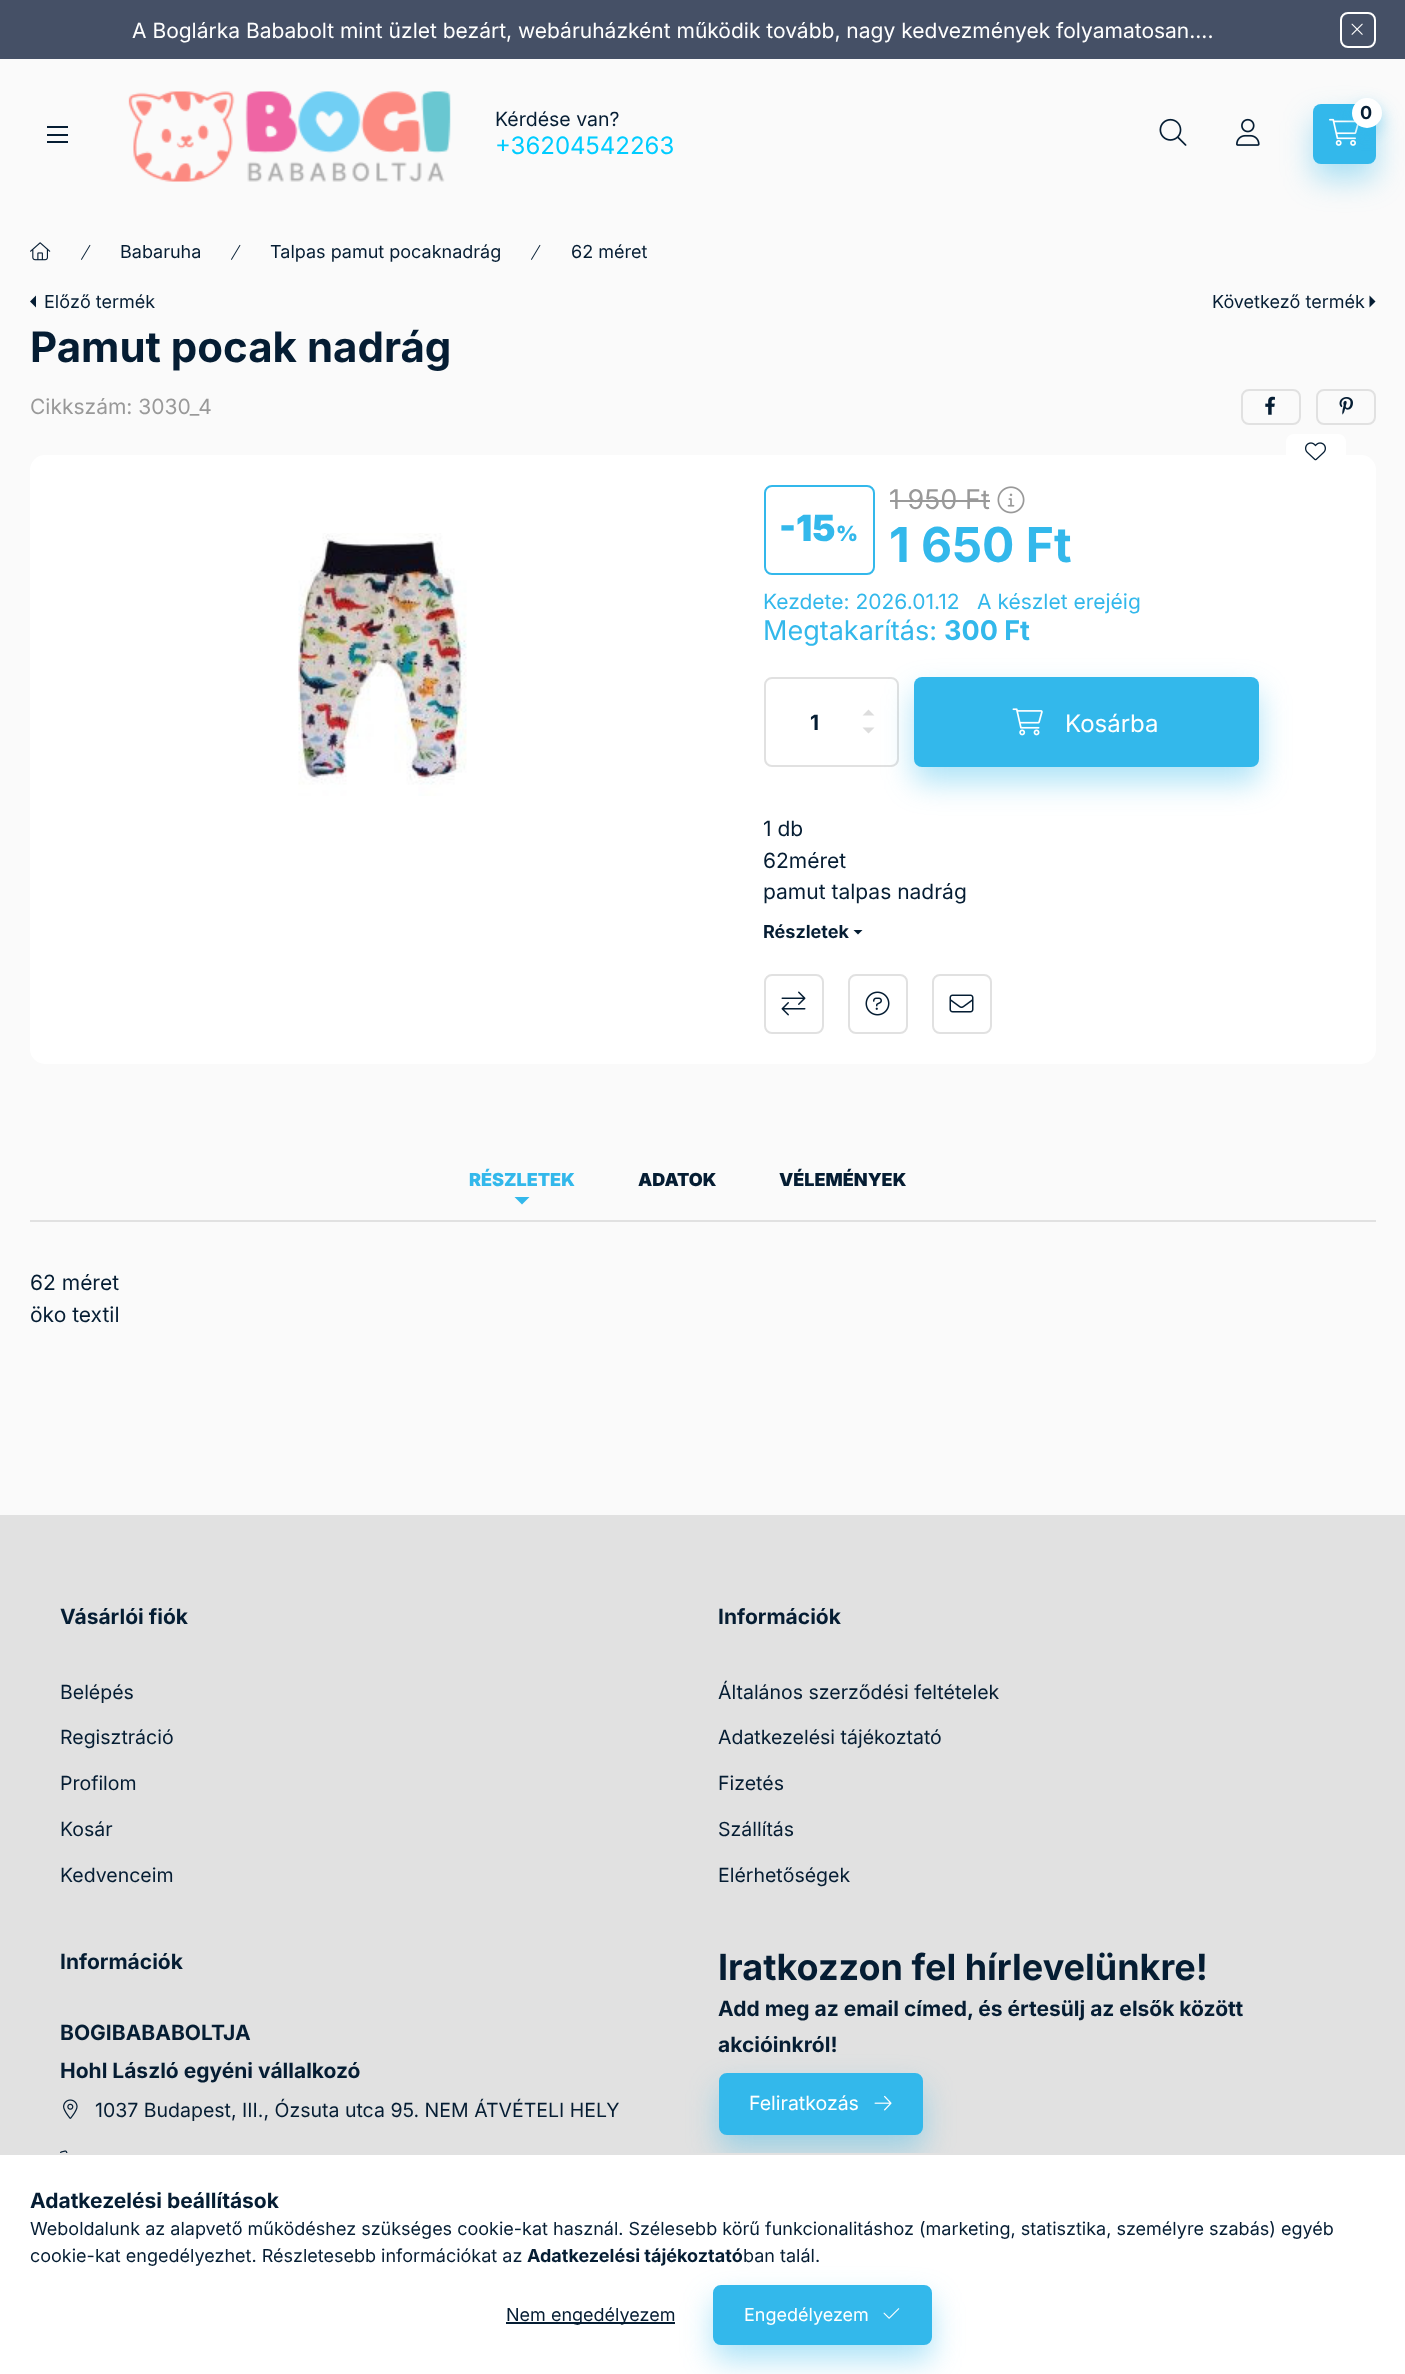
<?xml version="1.0" encoding="UTF-8"?>
<svg xmlns="http://www.w3.org/2000/svg" xmlns:xlink="http://www.w3.org/1999/xlink" width="1405" height="2374">
  <rect width="100%" height="100%" fill="#fafafa" />
  <rect width="1405" height="59" fill="#455066" />
  <rect x="1341" y="13" width="34" height="34" rx="7" fill="none" stroke="#ffffff" stroke-width="2" />
  <image x="1351" y="23" width="12" height="12" xlink:href="image1.png" />
  <rect x="47" y="126" width="21" height="2" fill="#051d33" />
  <rect x="47" y="134" width="21" height="2" fill="#051d33" />
  <rect x="47" y="141" width="21" height="2" fill="#051d33" />
  <image x="128" y="91" width="323" height="91" xlink:href="image2.png" />
  <rect x="1313" y="119" width="63" height="60" rx="8" fill="#33b8eb" fill-opacity="0.4" filter="blur(15px)" />
  <rect x="1313" y="104" width="63" height="60" rx="8" fill="#33b8eb" />
  <image x="1329" y="118" width="30" height="28" xlink:href="image3.png" />
  <rect x="1352" y="105" width="30" height="30" rx="15" fill="#33b8eb" fill-opacity="0.4" filter="blur(7.5px)" />
  <circle cx="1367" cy="113" r="15" fill="#ffffff" />
  <image x="1159" y="118" width="28" height="28" xlink:href="image4.png" />
  <image x="1236" y="118" width="24" height="28" xlink:href="image5.png" />
  <image x="30" y="242" width="21" height="19" xlink:href="image6.png" />
  <image x="81" y="244" width="10" height="16" xlink:href="image7.png" />
  <image x="231" y="244" width="10" height="16" xlink:href="image7.png" />
  <image x="531" y="244" width="10" height="16" xlink:href="image7.png" />
  <path d="M 36 307.5 v -12 l -6 6 z" fill="#051d33" />
  <path d="M 1369.5 307.5 v -12 l 6 6 z" fill="#051d33" />
  <rect x="1242" y="390" width="58" height="34" rx="7" fill="none" stroke="#e1e1e1" stroke-width="2" />
  <image x="1265" y="396" width="10" height="19" xlink:href="image8.png" />
  <rect x="1317" y="390" width="58" height="34" rx="7" fill="none" stroke="#e1e1e1" stroke-width="2" />
  <image x="1339" y="397" width="14" height="18" xlink:href="image9.png" />
  <rect x="30" y="455" width="1346" height="609" rx="15" fill="#ffffff" />
  <rect x="1286" y="434" width="60" height="36" rx="8" fill="#ffffff" />
  <image x="1305" y="442" width="21" height="19" xlink:href="image10.png" />
  <image x="298" y="533" width="169" height="263" xlink:href="image11.png" />
  <rect x="765" y="486" width="109" height="88" rx="7" fill="none" stroke="#33b8eb" stroke-width="2" />
  <rect x="890" y="500" width="100" height="2" fill="#999999" />
  <image x="997" y="486" width="28" height="28" xlink:href="image12.png" />
  <rect x="765" y="678" width="133" height="88" rx="7" fill="none" stroke="#e1e1e1" stroke-width="2" />
  <path d="M 874.5 715.5 h -12 l 6 -6 z m -12 12 h 12 l -6 6 z" fill="#dddddd" />
  <rect x="914" y="692" width="345" height="90" rx="8" fill="#33b8eb" fill-opacity="0.4" filter="blur(15px)" />
  <rect x="914" y="677" width="345" height="90" rx="8" fill="#33b8eb" />
  <image x="1012" y="708" width="31" height="28" xlink:href="image13.png" />
  <path d="M 853.5 930 h 9 l -4.5 4.5 z" fill="#051d33" />
  <rect x="765" y="975" width="58" height="58" rx="7" fill="none" stroke="#e1e1e1" stroke-width="2" />
  <image x="781" y="991" width="25" height="25" xlink:href="image14.png" />
  <rect x="849" y="975" width="58" height="58" rx="7" fill="none" stroke="#e1e1e1" stroke-width="2" />
  <image x="865" y="991" width="25" height="25" xlink:href="image15.png" />
  <rect x="933" y="975" width="58" height="58" rx="7" fill="none" stroke="#e1e1e1" stroke-width="2" />
  <image x="949" y="994" width="25" height="19" xlink:href="image16.png" />
  <rect x="30" y="1220" width="1346" height="2" fill="#e1e1e1" />
  <path d="M 514.5 1197 h 15 l -7.5 7.5 z" fill="#33b8eb" />
  <rect y="1515" width="1405" height="638" fill="#e1e1e1" />
  <image x="63" y="2099" width="15" height="20" xlink:href="image17.png" />
  <image x="60" y="2150" width="8" height="3" xlink:href="image18.png" />
  <rect x="719" y="2088" width="204" height="62" rx="8" fill="#33b8eb" fill-opacity="0.4" filter="blur(15px)" />
  <rect x="720" y="2074" width="202" height="60" rx="7" fill="#33b8eb" stroke="#33b8eb" stroke-width="2" />
  <image x="874" y="2095" width="18" height="16" xlink:href="image19.png" />
  <rect y="2155" width="1405" height="219" fill="#ffffff" />
  <rect y="2153" width="1405" height="2" fill="#e1e1e1" />
  <rect x="506" y="2322" width="169" height="2" fill="#051d33" />
  <rect x="713" y="2300" width="219" height="60" rx="8" fill="#33b8eb" fill-opacity="0.4" filter="blur(15px)" />
  <rect x="714" y="2286" width="217" height="58" rx="7" fill="#33b8eb" stroke="#33b8eb" stroke-width="2" />
  <image x="883" y="2308" width="17" height="11" xlink:href="image20.png" />
  <text x="132" y="38" style="font-family: Inter; font-size: 21px; fill: #ffffff">A Boglárka Bababolt mint üzlet bezárt, webáruházként működik tovább, nagy kedvezmények folyamatosan....</text>
  <text x="495" y="126" style="font-family: Inter; font-size: 19.5px; fill: #051d33">Kérdése van?</text>
  <text x="495" y="154" style="font-family: Inter; font-size: 24px; fill: #00ccff">+36204542263</text>
  <text x="1360" y="119" style="font-family: Inter; font-size: 18px; font-weight: bold; fill: #051d33">0</text>
  <text x="120" y="258" style="font-family: Inter; font-size: 18px; fill: #051d33">Babaruha</text>
  <text x="270" y="258" style="font-family: Inter; font-size: 18px; fill: #051d33">Talpas pamut pocaknadrág</text>
  <text x="571" y="258" style="font-family: Inter; font-size: 18px; fill: #051d33">62 méret</text>
  <text x="44" y="308" style="font-family: Inter; font-size: 18px; fill: #051d33">Előző termék</text>
  <text x="1212" y="308" style="font-family: Inter; font-size: 18px; fill: #051d33">Következő termék</text>
  <text x="30" y="362" style="font-family: Inter; font-size: 42px; font-weight: bold; fill: #051d33">Pamut pocak nadrág</text>
  <text x="30" y="414" style="font-family: Inter; font-size: 21px; fill: #999999">Cikkszám: 3030_4</text>
  <text x="779" y="541" style="font-family: Inter; font-size: 36px; font-weight: 900; fill: #33b8eb">-15</text>
  <text x="836" y="541" style="font-family: Inter; font-size: 21px; font-weight: 900; fill: #33b8eb">%</text>
  <text x="889" y="509" style="font-family: Inter; font-size: 27px; fill: #999999">1 950 Ft</text>
  <text x="889" y="562" style="font-family: Inter; font-size: 48px; font-weight: bold; fill: #33b8eb">1 650 Ft</text>
  <text x="763" y="609" style="font-family: Inter; font-size: 21px; fill: #33b8eb">Kezdete: 2026.01.12</text>
  <text x="977" y="609" style="font-family: Inter; font-size: 21px; fill: #33b8eb">A készlet erejéig</text>
  <text x="763" y="640" style="font-family: Inter; font-size: 27px; fill: #33b8eb">Megtakarítás:</text>
  <text x="944" y="640" style="font-family: Inter; font-size: 27px; font-weight: bold; fill: #33b8eb">300 Ft</text>
  <text x="810" y="730" style="font-family: Inter; font-size: 21px; font-weight: bold; fill: #051d33">1</text>
  <text x="1065" y="732" style="font-family: Inter; font-size: 24px; fill: #ffffff">Kosárba</text>
  <text x="763" y="836" style="font-family: Inter; font-size: 21px; fill: #051d33">1 db</text>
  <text x="763" y="868" style="font-family: Inter; font-size: 21px; fill: #051d33">62méret</text>
  <text x="763" y="899" style="font-family: Inter; font-size: 21px; fill: #051d33">pamut talpas nadrág</text>
  <text x="763" y="938" style="font-family: Inter; font-size: 18px; font-weight: bold; fill: #051d33">Részletek</text>
  <text x="469" y="1186" style="font-family: Inter; font-size: 18px; font-weight: 900; fill: #33b8eb">RÉSZLETEK</text>
  <text x="638" y="1186" style="font-family: Inter; font-size: 18px; font-weight: 900; fill: #051d33">ADATOK</text>
  <text x="779" y="1186" style="font-family: Inter; font-size: 18px; font-weight: 900; fill: #051d33">VÉLEMÉNYEK</text>
  <text x="30" y="1290" style="font-family: Inter; font-size: 21px; fill: #051d33">62 méret</text>
  <text x="30" y="1322" style="font-family: Inter; font-size: 21px; fill: #051d33">öko textil</text>
  <text x="60" y="1624" style="font-family: Inter; font-size: 21px; font-weight: bold; fill: #051d33">Vásárlói fiók</text>
  <text x="60" y="1699" style="font-family: Inter; font-size: 19.5px; fill: #051d33">Belépés</text>
  <text x="60" y="1744" style="font-family: Inter; font-size: 19.5px; fill: #051d33">Regisztráció</text>
  <text x="60" y="1790" style="font-family: Inter; font-size: 19.5px; fill: #051d33">Profilom</text>
  <text x="60" y="1836" style="font-family: Inter; font-size: 19.5px; fill: #051d33">Kosár</text>
  <text x="60" y="1882" style="font-family: Inter; font-size: 19.5px; fill: #051d33">Kedvenceim</text>
  <text x="718" y="1624" style="font-family: Inter; font-size: 21px; font-weight: bold; fill: #051d33">Információk</text>
  <text x="718" y="1699" style="font-family: Inter; font-size: 19.5px; fill: #051d33">Általános szerződési feltételek</text>
  <text x="718" y="1744" style="font-family: Inter; font-size: 19.5px; fill: #051d33">Adatkezelési tájékoztató</text>
  <text x="718" y="1790" style="font-family: Inter; font-size: 19.5px; fill: #051d33">Fizetés</text>
  <text x="718" y="1836" style="font-family: Inter; font-size: 19.5px; fill: #051d33">Szállítás</text>
  <text x="718" y="1882" style="font-family: Inter; font-size: 19.5px; fill: #051d33">Elérhetőségek</text>
  <text x="60" y="1969" style="font-family: Inter; font-size: 21px; font-weight: bold; fill: #051d33">Információk</text>
  <text x="60" y="2040" style="font-family: Inter; font-size: 21px; font-weight: bold; fill: #051d33">BOGIBABABOLTJA</text>
  <text x="60" y="2078" style="font-family: Inter; font-size: 21px; font-weight: bold; fill: #051d33">Hohl László egyéni vállalkozó</text>
  <text x="95" y="2117" style="font-family: Inter; font-size: 19.5px; fill: #051d33">1037 Budapest, III., Ózsuta utca 95. NEM ÁTVÉTELI HELY</text>
  <text x="718" y="1980" style="font-family: Inter; font-size: 36px; font-weight: bold; fill: #051d33">Iratkozzon fel hírlevelünkre!</text>
  <text x="718" y="2016" style="font-family: Inter; font-size: 21px; font-weight: bold; fill: #051d33">Add meg az email címed, és értesülj az elsők között</text>
  <text x="718" y="2052" style="font-family: Inter; font-size: 21px; font-weight: bold; fill: #051d33">akcióinkról!</text>
  <text x="749" y="2110" style="font-family: Inter; font-size: 19.5px; fill: #ffffff">Feliratkozás</text>
  <text x="30" y="2208" style="font-family: Inter; font-size: 21px; font-weight: bold; fill: #051d33">Adatkezelési beállítások</text>
  <text x="30" y="2235" style="font-family: Inter; font-size: 18px; fill: #051d33">Weboldalunk az alapvető működéshez szükséges cookie-kat használ. Szélesebb körű funkcionalitáshoz (marketing, statisztika, személyre szabás) egyéb</text>
  <text x="30" y="2262" style="font-family: Inter; font-size: 18px; fill: #051d33">cookie-kat engedélyezhet. Részletesebb információkat az</text>
  <text x="527" y="2262" style="font-family: Inter; font-size: 18px; font-weight: bold; fill: #051d33">Adatkezelési tájékoztató</text>
  <text x="743" y="2262" style="font-family: Inter; font-size: 18px; fill: #051d33">ban talál.</text>
  <text x="506" y="2321" style="font-family: Inter; font-size: 18px; fill: #051d33">Nem engedélyezem</text>
  <text x="744" y="2321" style="font-family: Inter; font-size: 18px; fill: #ffffff">Engedélyezem</text>
</svg>
